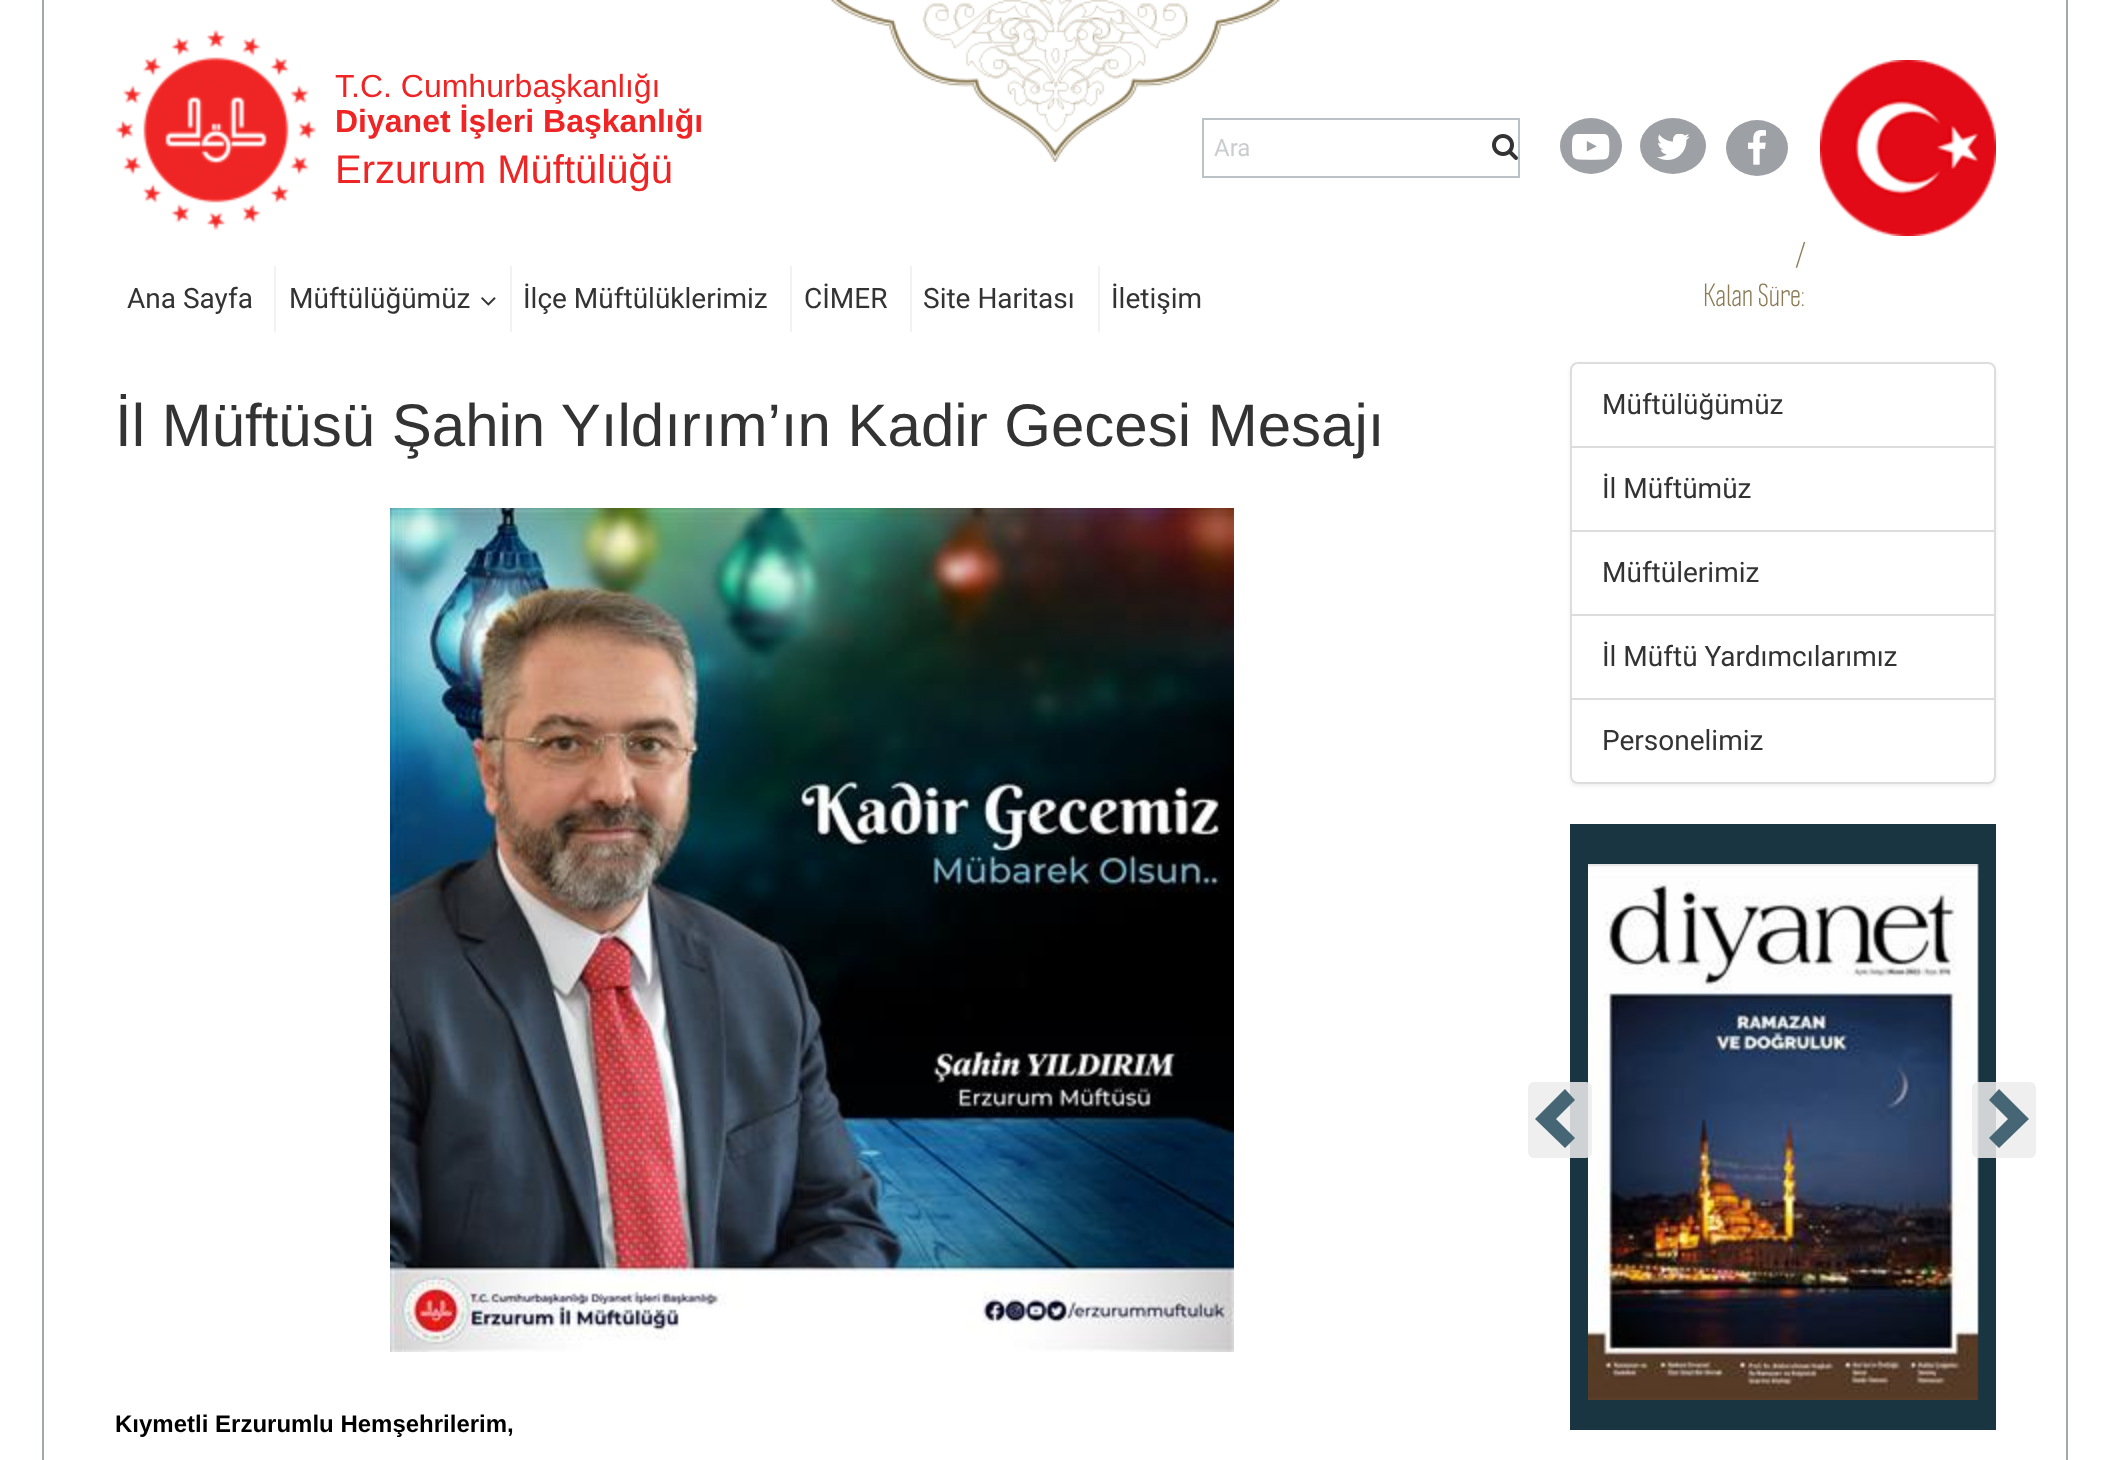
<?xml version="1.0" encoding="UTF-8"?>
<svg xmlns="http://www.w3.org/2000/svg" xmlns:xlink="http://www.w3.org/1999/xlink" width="2110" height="1460">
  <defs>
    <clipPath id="clip1"><path d="M 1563 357 h 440 v 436 h -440 z m 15 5 h 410 c 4.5 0 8 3.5 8 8 v 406 c 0 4.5 -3.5 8 -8 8 h -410 c -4.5 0 -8 -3.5 -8 -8 v -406 c 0 -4.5 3.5 -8 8 -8 z" clip-rule="evenodd" /></clipPath>
  </defs>
  <rect width="100%" height="100%" fill="#ffffff" />
  <rect x="2066" width="2" height="1460" fill="#a1aaa6" />
  <rect x="42" width="2" height="1460" fill="#a1aaa6" />
  <image x="830" y="0" width="450" height="162" xlink:href="image1.png" />
  <image x="116" y="30" width="200" height="200" xlink:href="image2.png" />
  <rect x="1203" y="119" width="316" height="58" fill="none" stroke="#bac2c6" stroke-width="2" />
  <image x="1492" y="134" width="26" height="26" xlink:href="image3.png" />
  <ellipse cx="1591" cy="146" rx="31" ry="28" fill="#9da0a5" />
  <image x="1572" y="134" width="38" height="26" xlink:href="image4.png" />
  <ellipse cx="1673" cy="146" rx="33" ry="28" fill="#9da0a5" />
  <image x="1657" y="134" width="33" height="26" xlink:href="image5.png" />
  <ellipse cx="1757" cy="148" rx="31" ry="28" fill="#9da0a5" />
  <image x="1748" y="130" width="18" height="35" xlink:href="image6.png" />
  <image x="1820" y="60" width="176" height="176" xlink:href="image7.png" />
  <rect x="274" y="266" width="2" height="66" fill="#f2f2f2" />
  <rect x="510" y="266" width="2" height="66" fill="#f2f2f2" />
  <image x="481" y="297" width="15" height="9" xlink:href="image8.png" />
  <rect x="790" y="266" width="2" height="66" fill="#f2f2f2" />
  <rect x="910" y="266" width="2" height="66" fill="#f2f2f2" />
  <rect x="1098" y="266" width="2" height="66" fill="#f2f2f2" />
  <image x="390" y="508" width="844" height="844" xlink:href="image9.png" />
  <g clip-path="url(#clip1)">
    <rect x="1570" y="364" width="426" height="422" rx="8" fill="#000000" fill-opacity="0.07" filter="blur(2px)" />
  </g>
  <path d="M 1578 363 h 410 c 4 0 7 3 7 7 v 77 h -424 v -77 c 0 -4 3 -7 7 -7 z" fill="none" stroke="#dddddd" stroke-width="2" />
  <rect x="1571" y="447" width="424" height="84" fill="none" stroke="#dddddd" stroke-width="2" />
  <rect x="1571" y="531" width="424" height="84" fill="none" stroke="#dddddd" stroke-width="2" />
  <rect x="1571" y="615" width="424" height="84" fill="none" stroke="#dddddd" stroke-width="2" />
  <path d="M 1571 699 h 424 v 77 c 0 4 -3 7 -7 7 h -410 c -4 0 -7 -3 -7 -7 z" fill="#ffffff" stroke="#dddddd" stroke-width="2" />
  <rect x="1570" y="824" width="426" height="606" fill="#193541" />
  <image x="1588" y="864" width="391" height="536" xlink:href="image10.png" />
  <rect x="1528" y="1082" width="64" height="76" rx="6" fill="#ececec" fill-opacity="0.86" />
  <path d="M 1575 1100 l -19 19 l 19 19 l -10 10 l -30 -29 l 30 -30 z" fill="#466675" />
  <rect x="1972" y="1082" width="64" height="76" rx="6" fill="#ececec" fill-opacity="0.86" />
  <path d="M 2029 1119 l -30 29 l -10 -10 l 19 -19 l -19 -19 l 10 -11 z" fill="#466675" />
  <text x="335" y="97" style="font-family: Liberation Sans; font-size: 32px; fill: #ee2524">T.C. Cumhurbaşkanlığı</text>
  <text x="335" y="132" style="font-family: Liberation Sans; font-size: 32px; font-weight: bold; fill: #ee2524">Diyanet İşleri Başkanlığı</text>
  <text x="335" y="183" style="font-family: Liberation Sans; font-size: 40px; fill: #ee2524">Erzurum Müftülüğü</text>
  <text x="1214" y="156" style="font-family: Roboto; font-size: 24px; fill: #caccce">Ara</text>
  <text x="127" y="308" style="font-family: Roboto; font-size: 28px; fill: #333333">Ana Sayfa</text>
  <text x="289" y="308" style="font-family: Roboto; font-size: 28px; fill: #333333">Müftülüğümüz</text>
  <text x="523" y="308" style="font-family: Roboto; font-size: 28px; fill: #333333">İlçe Müftülüklerimiz</text>
  <text x="804" y="308" style="font-family: Roboto; font-size: 28px; fill: #333333">CİMER</text>
  <text x="923" y="308" style="font-family: Roboto; font-size: 28px; fill: #333333">Site Haritası</text>
  <text x="1111" y="308" style="font-family: Roboto; font-size: 28px; fill: #333333">İletişim</text>
  <text x="1796" y="266" style="font-family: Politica; font-size: 28px; fill: #8c7c56">/</text>
  <text x="1703" y="306" style="font-family: Politica; font-size: 28px; fill: #8c7c56">Kalan Süre:</text>
  <text x="115" y="446" style="font-family: Liberation Sans; font-size: 60px; fill: #333333">İl Müftüsü Şahin Yıldırım’ın Kadir Gecesi Mesajı</text>
  <text x="115" y="1432" style="font-family: Liberation Sans; font-size: 24px; font-weight: bold; fill: #000000">Kıymetli Erzurumlu Hemşehrilerim,</text>
  <text x="1602" y="414" style="font-family: Roboto; font-size: 28px; fill: #333333">Müftülüğümüz</text>
  <text x="1602" y="498" style="font-family: Roboto; font-size: 28px; fill: #333333">İl Müftümüz</text>
  <text x="1602" y="582" style="font-family: Roboto; font-size: 28px; fill: #333333">Müftülerimiz</text>
  <text x="1602" y="666" style="font-family: Roboto; font-size: 28px; fill: #333333">İl Müftü Yardımcılarımız</text>
  <text x="1602" y="750" style="font-family: Roboto; font-size: 28px; fill: #333333">Personelimiz</text>
</svg>
